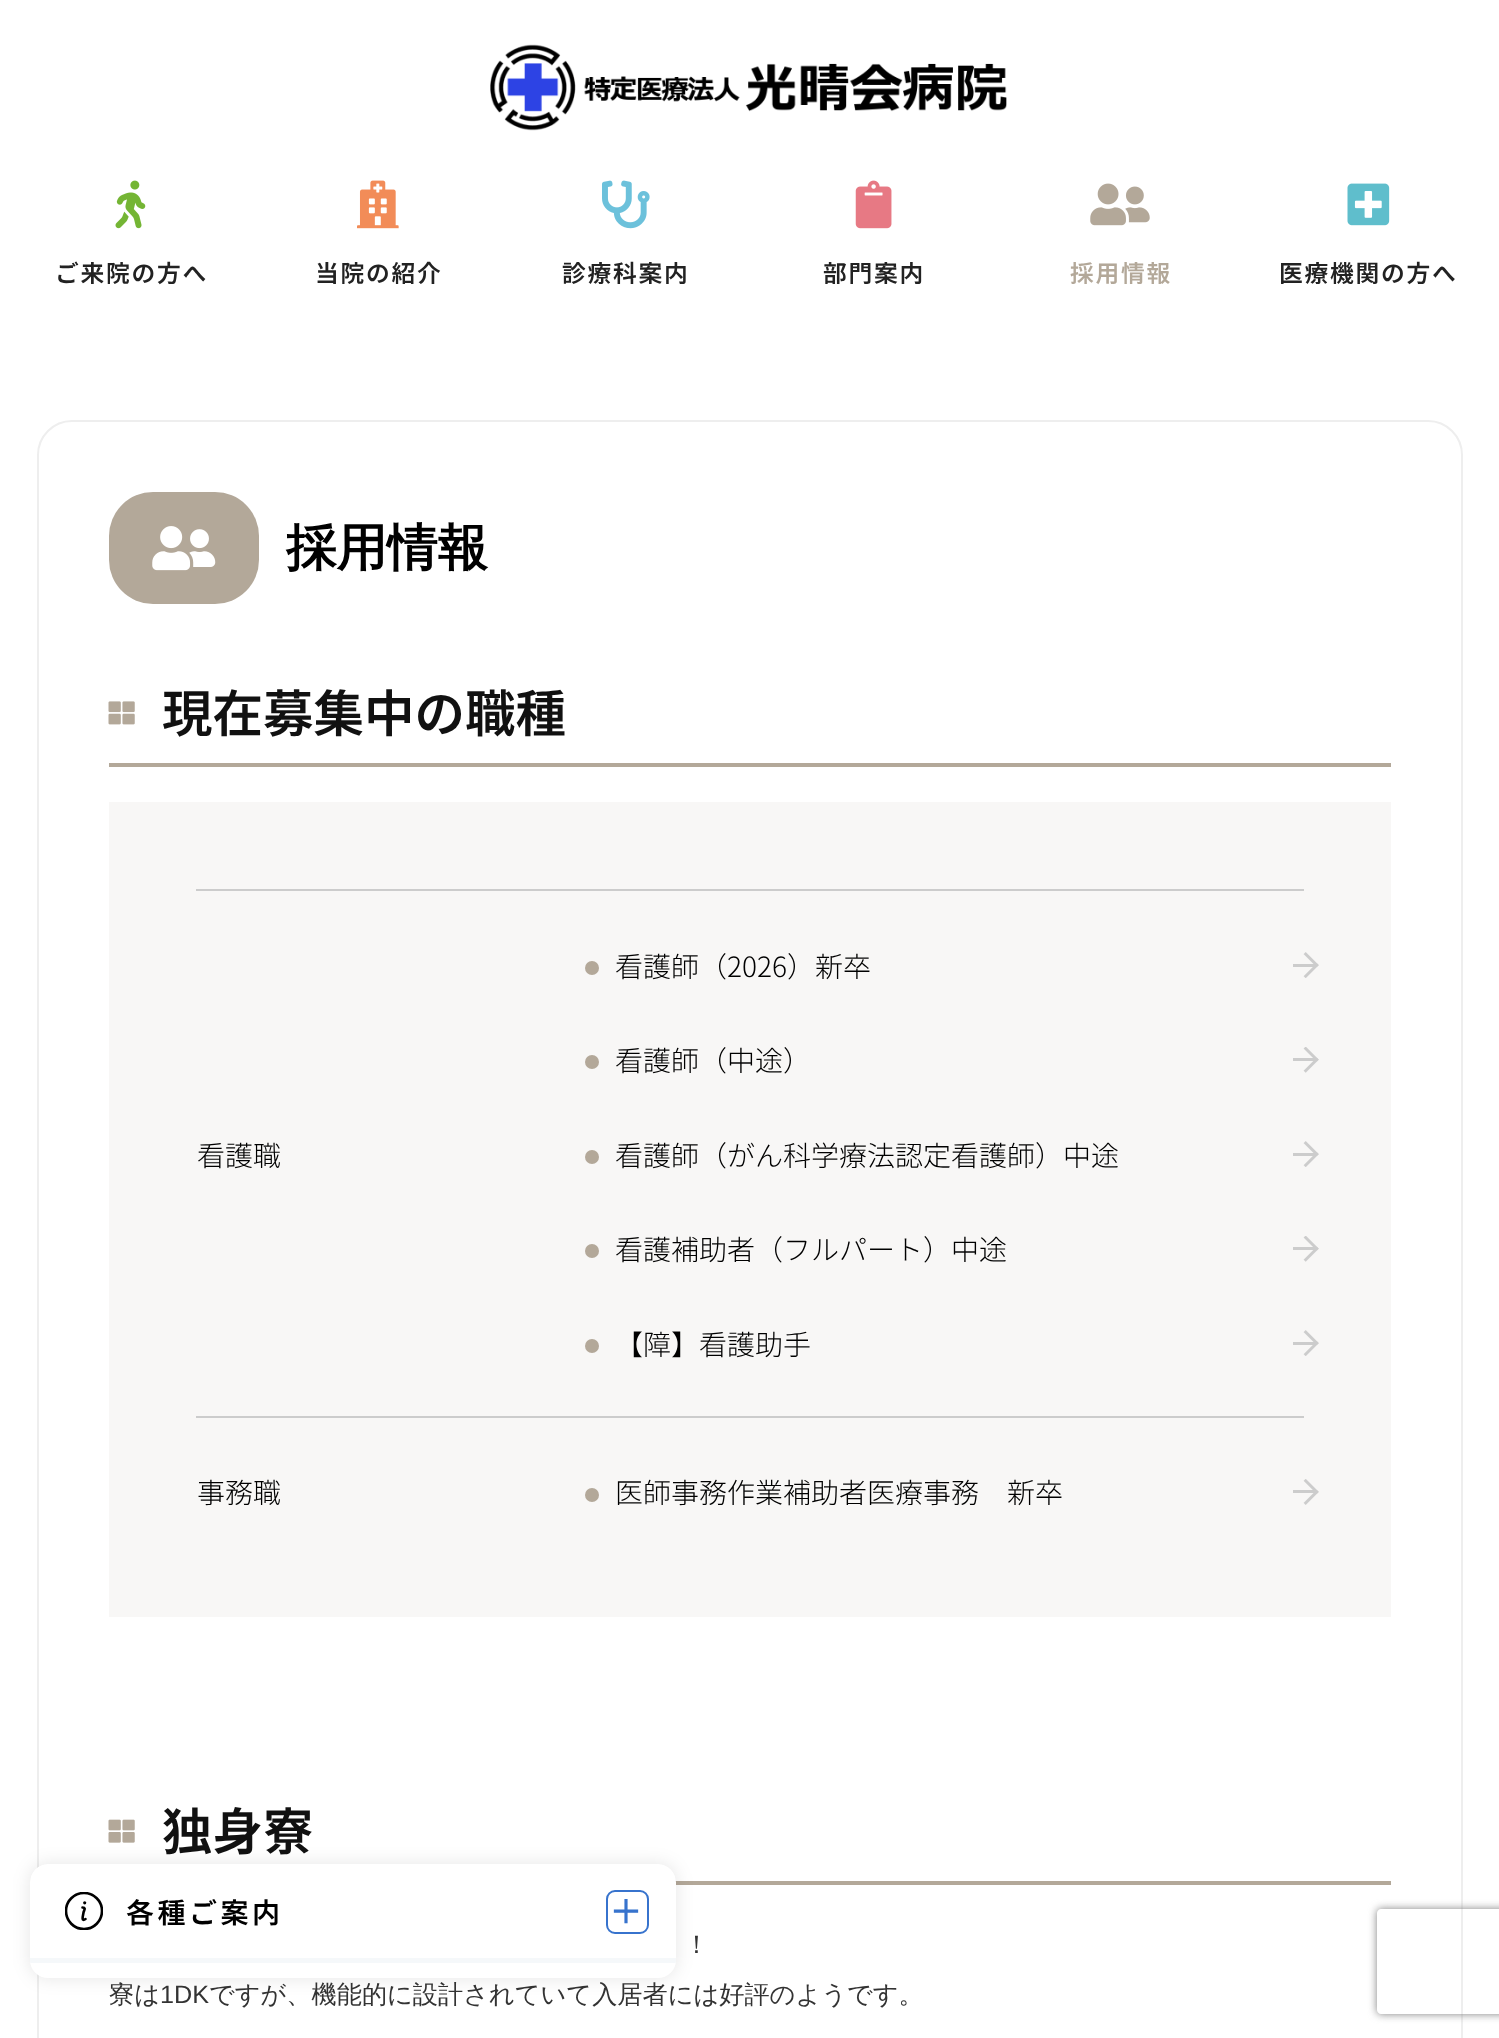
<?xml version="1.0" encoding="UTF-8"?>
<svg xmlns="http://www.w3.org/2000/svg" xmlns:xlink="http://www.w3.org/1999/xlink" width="1499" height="2038">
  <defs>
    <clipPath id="clip1"><rect x="30" y="1864" width="646" height="114" rx="18" /></clipPath>
    <clipPath id="clip2"><rect x="65" y="1892" width="38" height="38" /></clipPath>
    <clipPath id="clip3"><path d="M 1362 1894 h 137 v 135 h -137 z m 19 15 h 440 c 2 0 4 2 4 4 v 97 c 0 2 -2 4 -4 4 h -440 c -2 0 -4 -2 -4 -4 v -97 c 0 -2 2 -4 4 -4 z" clip-rule="evenodd" /></clipPath>
  </defs>
  <rect width="100%" height="100%" fill="#ffffff" />
  <image x="490" y="44" width="517" height="87" xlink:href="image1.png" />
  <image x="115" y="180" width="31" height="49" xlink:href="image2.png" />
  <image x="357" y="180" width="42" height="49" xlink:href="image3.png" />
  <image x="602" y="180" width="48" height="49" xlink:href="image4.png" />
  <image x="855" y="180" width="37" height="49" xlink:href="image5.png" />
  <image x="1090" y="183" width="60" height="43" xlink:href="image6.png" />
  <image x="1347" y="183" width="43" height="43" xlink:href="image7.png" />
  <rect x="38" y="421" width="1424" height="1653" rx="34" fill="none" stroke="#eeeeee" stroke-width="2" />
  <rect x="109" y="492" width="150" height="112" rx="44" fill="#b3a899" />
  <image x="152" y="526" width="64" height="45" xlink:href="image8.png" />
  <rect x="109" y="763" width="1282" height="4" fill="#b3a899" />
  <image x="108" y="701" width="27" height="24" xlink:href="image9.png" />
  <rect x="109" y="802" width="1282" height="815" fill="#f8f7f6" />
  <rect x="196" y="889" width="1108" height="2" fill="#cccccc" />
  <circle cx="592" cy="968" r="7" fill="#b3a899" />
  <image x="1293" y="952" width="26" height="26" xlink:href="image10.png" />
  <circle cx="592" cy="1062" r="7" fill="#b3a899" />
  <image x="1293" y="1047" width="26" height="26" xlink:href="image11.png" />
  <circle cx="592" cy="1157" r="7" fill="#b3a899" />
  <image x="1293" y="1141" width="26" height="26" xlink:href="image10.png" />
  <circle cx="592" cy="1251" r="7" fill="#b3a899" />
  <image x="1293" y="1236" width="26" height="26" xlink:href="image11.png" />
  <circle cx="592" cy="1346" r="7" fill="#b3a899" />
  <image x="1293" y="1330" width="26" height="26" xlink:href="image10.png" />
  <rect x="196" y="1416" width="1108" height="2" fill="#cccccc" />
  <circle cx="592" cy="1495" r="7" fill="#b3a899" />
  <image x="1293" y="1479" width="26" height="26" xlink:href="image12.png" />
  <rect x="675" y="1881" width="716" height="4" fill="#b3a899" />
  <image x="108" y="1819" width="27" height="24" xlink:href="image13.png" />
  <rect x="30" y="1864" width="646" height="114" rx="18" fill="#000000" fill-opacity="0.1" filter="blur(9px)" />
  <g clip-path="url(#clip1)">
    <path d="M 48 1864 h 610 c 10 0 18 8 18 18 v 82 h -646 v -82 c 0 -10 8 -18 18 -18 z" fill="#ffffff" />
    <rect x="30" y="1958" width="646" height="5" fill="#f5f8fa" />
  </g>
  <g clip-path="url(#clip2)">
    <circle cx="84" cy="1911" r="18" fill="none" stroke="#000000" stroke-width="2.6" />
  </g>
  <path d="M 82.5 1907.5 c 3.5 0 2 2 1 5 c 0 1.5 -3 10 2 6.5" fill="none" stroke="#000000" stroke-width="2.6" stroke-linecap="round" stroke-linejoin="round" />
  <circle cx="84.7" cy="1902.8" r="1.6" fill="#000000" />
  <rect x="607" y="1891" width="41" height="42" rx="8" fill="none" stroke="#3773cd" stroke-width="2" />
  <g clip-path="url(#clip1)">
    <rect x="30" y="1964" width="646" height="14" fill="#ffffff" />
  </g>
  <g clip-path="url(#clip3)">
    <rect x="1377" y="1909" width="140" height="105" rx="4" fill="#808080" filter="blur(4.5px)" />
  </g>
  <text x="55" y="282" style="font-family: Noto Sans JP; font-size: 23.75px; font-weight: 600; letter-spacing: 1.75px; fill: #222222">ご来院の方へ</text>
  <text x="315" y="282" style="font-family: Noto Sans JP; font-size: 23.75px; font-weight: 600; letter-spacing: 1.75px; fill: #222222">当院の紹介</text>
  <text x="562" y="282" style="font-family: Noto Sans JP; font-size: 23.75px; font-weight: 600; letter-spacing: 1.75px; fill: #222222">診療科案内</text>
  <text x="823" y="282" style="font-family: Noto Sans JP; font-size: 23.75px; font-weight: 600; letter-spacing: 1.75px; fill: #222222">部門案内</text>
  <text x="1070" y="282" style="font-family: Noto Sans JP; font-size: 23.75px; font-weight: 600; letter-spacing: 1.75px; fill: #b3a899">採用情報</text>
  <text x="1279" y="282" style="font-family: Noto Sans JP; font-size: 23.75px; font-weight: 600; letter-spacing: 1.75px; fill: #222222">医療機関の方へ</text>
  <text x="286" y="565" style="font-family: WenQuanYi Zen Hei; font-size: 50.5px; font-weight: bold; fill: #000000">採用情報</text>
  <text x="162" y="732" style="font-family: Noto Sans JP; font-size: 50.5px; font-weight: 600; fill: #111111">現在募集中の職種</text>
  <text x="197" y="1166" style="font-family: Noto Sans JP; font-size: 28px; font-weight: 300; fill: #000000">看護職</text>
  <text x="615" y="977" style="font-family: Noto Sans JP; font-size: 28px; font-weight: 300; fill: #000000">看護師（2026）新卒</text>
  <text x="615" y="1071" style="font-family: Noto Sans JP; font-size: 28px; font-weight: 300; fill: #000000">看護師（中途）</text>
  <text x="615" y="1166" style="font-family: Noto Sans JP; font-size: 28px; font-weight: 300; fill: #000000">看護師（がん科学療法認定看護師）中途</text>
  <text x="615" y="1260" style="font-family: Noto Sans JP; font-size: 28px; font-weight: 300; fill: #000000">看護補助者（フルパート）中途</text>
  <text x="615" y="1355" style="font-family: Noto Sans JP; font-size: 28px; font-weight: 300; fill: #000000">【障】看護助手</text>
  <text x="197" y="1503" style="font-family: Noto Sans JP; font-size: 28px; font-weight: 300; fill: #000000">事務職</text>
  <text x="615" y="1503" style="font-family: Noto Sans JP; font-size: 28px; font-weight: 300; fill: #000000">医師事務作業補助者医療事務　新卒</text>
  <text x="162" y="1850" style="font-family: Noto Sans JP; font-size: 50.5px; font-weight: 600; fill: #111111">独身寮</text>
  <text x="684" y="1953" style="font-family: WenQuanYi Zen Hei; font-size: 25.2px; font-weight: 500; fill: #333333">！</text>
  <text x="109" y="2003" style="font-family: WenQuanYi Zen Hei; font-size: 25.2px; font-weight: 500; fill: #333333">寮は</text>
  <text x="160" y="2003" style="font-family: Liberation Sans; font-size: 25.2px; fill: #333333">1DK</text>
  <text x="209" y="2003" style="font-family: WenQuanYi Zen Hei; font-size: 25.2px; font-weight: 500; fill: #333333">ですが、機能的に設計されていて入居者には好評のようです。</text>
  <text x="126" y="1923" style="font-family: Noto Sans JP; font-size: 28px; font-weight: 600; letter-spacing: 3.5px; fill: #000000">各種ご案内</text>
  <text x="609" y="1924" style="font-family: Noto Sans JP; font-size: 34px; font-weight: 600; letter-spacing: 3.5px; fill: #3773cd">＋</text>
</svg>
